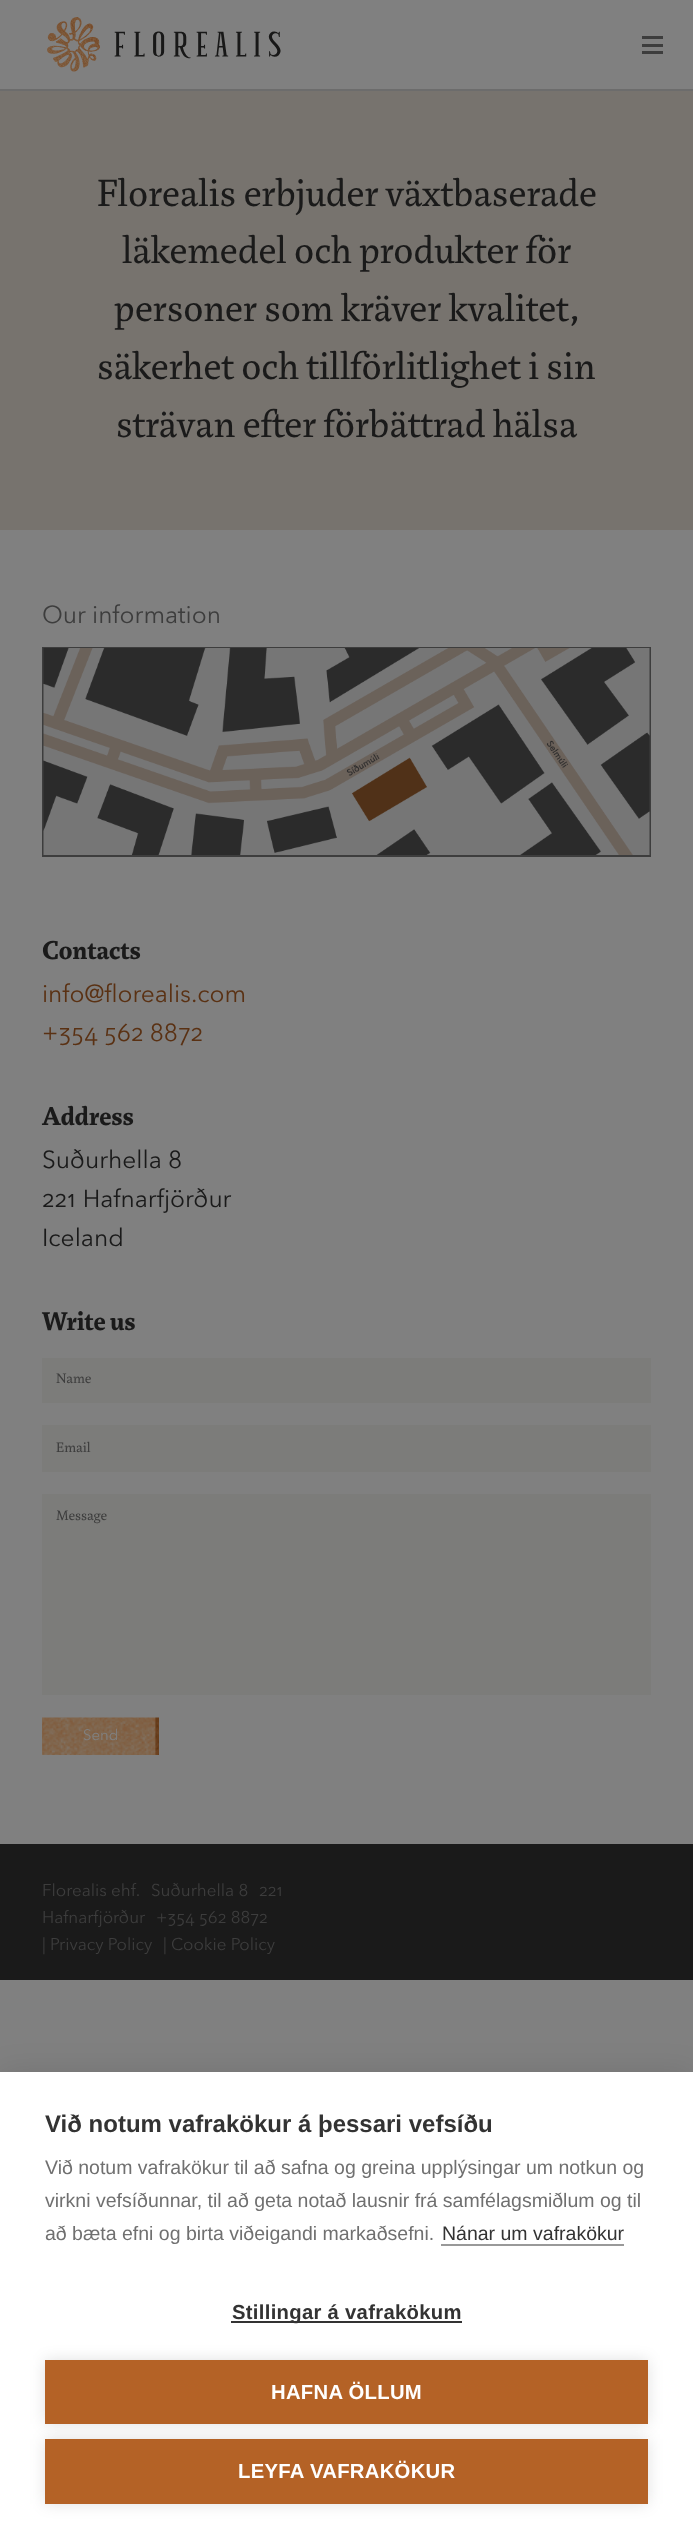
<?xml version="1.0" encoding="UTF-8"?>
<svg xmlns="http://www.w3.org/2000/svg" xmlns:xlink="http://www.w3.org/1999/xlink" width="693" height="2540">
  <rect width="100%" height="100%" fill="#808080" />
  <rect y="89" width="693" height="2" fill="#6c6c6c" />
  <image x="47" y="17" width="234" height="55" xlink:href="image1.png" />
  <rect x="642" y="44" width="21" height="3" fill="#3d3d3d" />
  <rect x="642" y="36" width="21" height="3" fill="#3d3d3d" />
  <rect x="642" y="51" width="21" height="3" fill="#3d3d3d" />
  <rect y="91" width="693" height="439" fill="#77736e" />
  <rect x="43" y="648" width="607" height="208" fill="none" stroke="#3d3d3d" stroke-width="2" />
  <image x="43" y="648" width="607" height="207" xlink:href="image2.png" />
  <rect x="42" y="1358" width="609" height="45" fill="#7c7c7a" />
  <rect x="42" y="1425" width="609" height="47" fill="#7c7c7a" />
  <rect x="42" y="1494" width="609" height="201" fill="#7c7c7a" />
  <image x="42" y="1717" width="117" height="38" xlink:href="image3.png" />
  <rect y="1844" width="693" height="136" fill="#1a1a1a" />
  <rect y="2072" width="693" height="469" fill="#000000" fill-opacity="0.1" filter="blur(15px)" />
  <rect y="2072" width="693" height="468" fill="#ffffff" />
  <rect x="441" y="2244" width="183" height="2" fill="#999999" />
  <rect x="231" y="2321" width="231" height="2" fill="#333333" />
  <rect x="45" y="2360" width="603" height="64" fill="#000000" fill-opacity="0.12" filter="blur(7.5px)" />
  <rect x="45" y="2360" width="603" height="64" fill="#b46226" />
  <rect x="45" y="2439" width="603" height="65" fill="#000000" fill-opacity="0.12" filter="blur(7.5px)" />
  <rect x="45" y="2439" width="603" height="65" fill="#b46226" />
  <text x="97" y="206" style="font-family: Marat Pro; font-size: 41.25px; fill: #1a1a1a">Florealis erbjuder växtbaserade</text>
  <text x="122" y="263" style="font-family: Marat Pro; font-size: 41.25px; fill: #1a1a1a">läkemedel och produkter för</text>
  <text x="114" y="321" style="font-family: Marat Pro; font-size: 41.25px; fill: #1a1a1a">personer som kräver kvalitet,</text>
  <text x="97" y="379" style="font-family: Marat Pro; font-size: 41.25px; fill: #1a1a1a">säkerhet och tillförlitlighet i sin</text>
  <text x="116" y="437" style="font-family: Marat Pro; font-size: 41.25px; fill: #1a1a1a">strävan efter förbättrad hälsa</text>
  <text x="42" y="623" style="font-family: Avenir; font-size: 24.5px; fill: #3d3d3d">Our information</text>
  <text x="42" y="959" style="font-family: Marat Pro; font-size: 28px; font-weight: bold; fill: #1a1a1a">Contacts</text>
  <text x="42" y="1002" style="font-family: Avenir; font-size: 24.5px; fill: #5a3113">info@florealis.com</text>
  <text x="42" y="1041" style="font-family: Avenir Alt; font-size: 24.5px; fill: #5a3113">+354 562 8872</text>
  <text x="42" y="1125" style="font-family: Marat Pro; font-size: 28px; font-weight: bold; fill: #1a1a1a">Address</text>
  <text x="42" y="1168" style="font-family: Avenir; font-size: 24.5px; fill: #1a1a1a">Suðurhella 8</text>
  <text x="42" y="1207" style="font-family: Avenir Alt; font-size: 24.5px; fill: #1a1a1a">221 Hafnarfjörður</text>
  <text x="42" y="1246" style="font-family: Avenir; font-size: 24.5px; fill: #1a1a1a">Iceland</text>
  <text x="42" y="1330" style="font-family: Marat Pro; font-size: 28px; font-weight: bold; fill: #1a1a1a">Write us</text>
  <text x="56" y="1383" style="font-family: Marat Pro; font-size: 15px; fill: #3d3d3d">Name</text>
  <text x="56" y="1452" style="font-family: Marat Pro; font-size: 15px; fill: #3d3d3d">Email</text>
  <text x="56" y="1520" style="font-family: Marat Pro; font-size: 15px; fill: #3d3d3d">Message</text>
  <text x="83" y="1740" style="font-family: Avenir; font-size: 15px; fill: #808080">Send</text>
  <text x="42" y="1896" style="font-family: Avenir; font-size: 17px; fill: #3d3d3d">Florealis ehf.</text>
  <text x="151" y="1896" style="font-family: Avenir; font-size: 17px; fill: #3d3d3d">Suðurhella 8</text>
  <text x="259" y="1896" style="font-family: Avenir Alt; font-size: 17px; fill: #3d3d3d">221</text>
  <text x="42" y="1923" style="font-family: Avenir; font-size: 17px; fill: #3d3d3d">Hafnarfjörður</text>
  <text x="156" y="1923" style="font-family: Avenir Alt; font-size: 17px; fill: #3d3d3d">+354 562 8872</text>
  <text x="42" y="1950" style="font-family: Avenir; font-size: 17px; fill: #3d3d3d">| Privacy Policy</text>
  <text x="163" y="1950" style="font-family: Avenir; font-size: 17px; fill: #3d3d3d">| Cookie Policy</text>
  <text x="45" y="2132" style="font-family: Liberation Sans; font-size: 24px; font-weight: bold; fill: #333333">Við notum vafrakökur á þessari vefsíðu</text>
  <text x="45" y="2174" style="font-family: Liberation Sans; font-size: 19.5px; fill: #707070">Við notum vafrakökur til að safna og greina upplýsingar um notkun og</text>
  <text x="45" y="2207" style="font-family: Liberation Sans; font-size: 19.5px; fill: #707070">virkni vefsíðunnar, til að geta notað lausnir frá samfélagsmiðlum og til</text>
  <text x="45" y="2240" style="font-family: Liberation Sans; font-size: 19.5px; fill: #707070">að bæta efni og birta viðeigandi markaðsefni.</text>
  <text x="442" y="2240" style="font-family: Liberation Sans; font-size: 19.5px; fill: #333333">Nánar um vafrakökur</text>
  <text x="232" y="2319" style="font-family: Liberation Sans; font-size: 20.25px; font-weight: bold; letter-spacing: 0.3px; fill: #333333">Stillingar á vafrakökum</text>
  <text x="271" y="2399" style="font-family: Liberation Sans; font-size: 20.25px; font-weight: bold; letter-spacing: 0.3px; fill: #ffffff">HAFNA ÖLLUM</text>
  <text x="238" y="2478" style="font-family: Liberation Sans; font-size: 20.25px; font-weight: bold; letter-spacing: 0.3px; fill: #ffffff">LEYFA VAFRAKÖKUR</text>
</svg>
